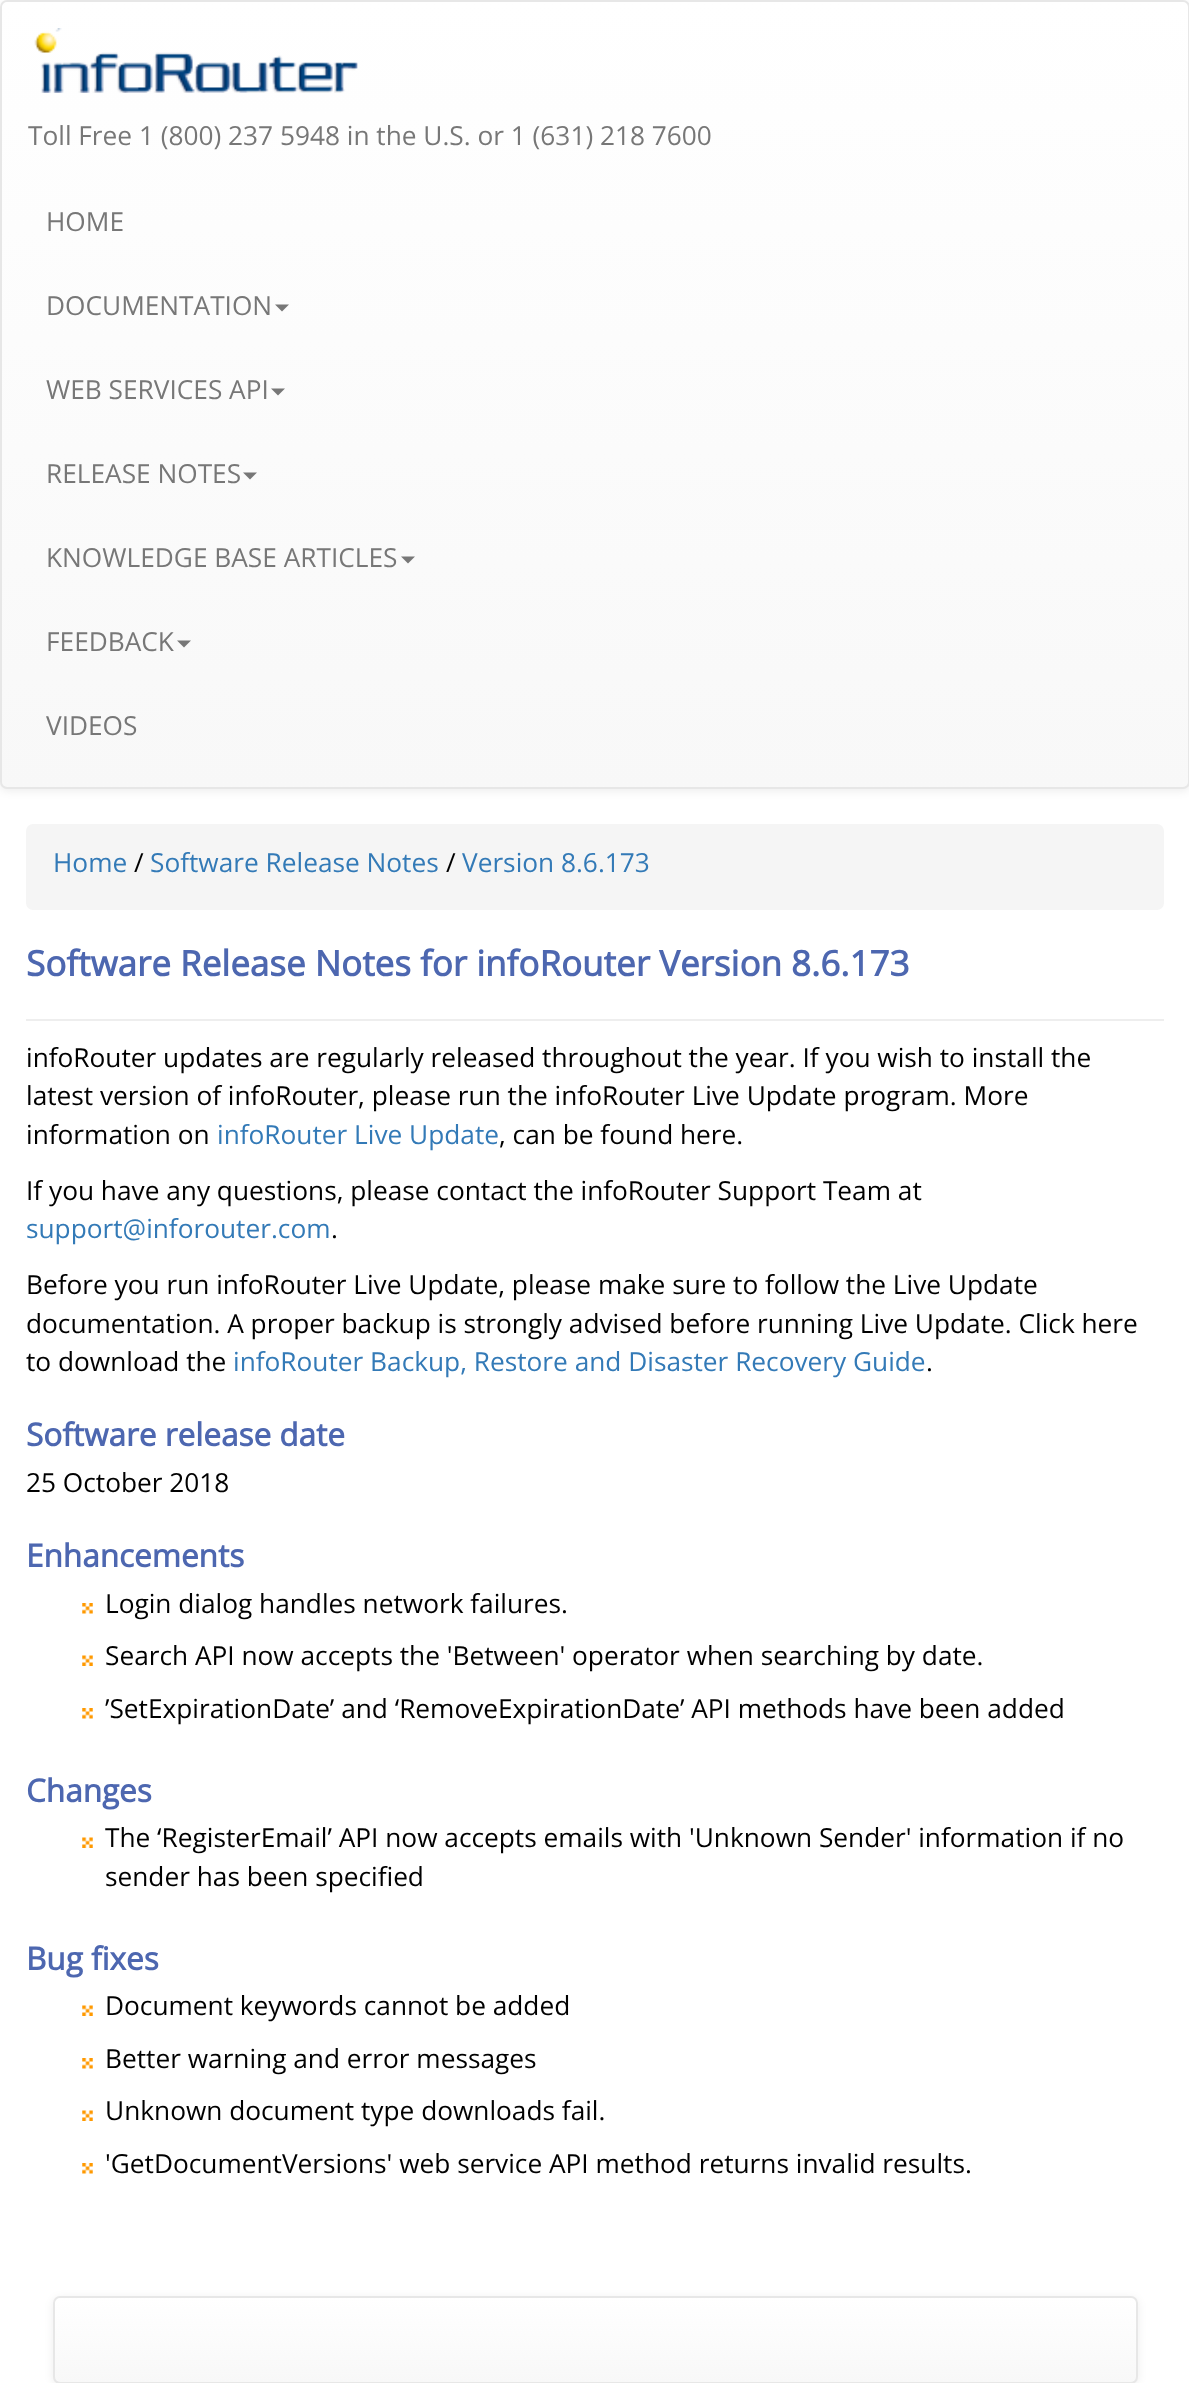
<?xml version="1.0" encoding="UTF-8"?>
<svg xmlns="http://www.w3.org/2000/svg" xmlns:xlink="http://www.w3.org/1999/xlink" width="1189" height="2383">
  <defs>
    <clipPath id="clip1"><rect width="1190" height="789" rx="7" /></clipPath>
    <linearGradient id="g1" gradientUnits="userSpaceOnUse" x1="595" y1="1.7" x2="595" y2="788"><stop offset="0" stop-color="#ffffff" /><stop offset="1" stop-color="#f8f8f8" /></linearGradient>
    <clipPath id="clip2"><rect x="53" y="2296" width="1085" height="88" rx="7" /></clipPath>
    <linearGradient id="g2" gradientUnits="userSpaceOnUse" x1="595" y1="2298" x2="595" y2="2382"><stop offset="0" stop-color="#ffffff" /><stop offset="1" stop-color="#f8f8f8" /></linearGradient>
  </defs>
  <rect width="100%" height="100%" fill="#ffffff" />
  <rect y="2" width="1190" height="789" rx="7" fill="#000000" fill-opacity="0.07" filter="blur(4.5px)" />
  <g clip-path="url(#clip1)">
    <rect y="2" width="1189" height="786" fill="url(#g1)" />
  </g>
  <rect x="1" y="1" width="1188" height="787" rx="6" fill="none" stroke="#e7e7e7" stroke-width="2" />
  <image x="34" y="28" width="324" height="65" xlink:href="image1.png" />
  <path d="M 275 304.5 h 14 l -7 7 z" fill="#777777" />
  <path d="M 271 388.5 h 14 l -7 7 z" fill="#777777" />
  <path d="M 243 472.5 h 14 l -7 7 z" fill="#777777" />
  <path d="M 401 556.5 h 14 l -7 7 z" fill="#777777" />
  <path d="M 177 640.5 h 14 l -7 7 z" fill="#777777" />
  <rect x="26" y="824" width="1138" height="86" rx="7" fill="#f5f5f5" />
  <rect x="26" y="1019" width="1138" height="2" fill="#eeeeee" />
  <image x="82" y="1603" width="11" height="11" xlink:href="image2.png" />
  <image x="82" y="1655" width="11" height="11" xlink:href="image3.png" />
  <image x="82" y="1708" width="11" height="11" xlink:href="image2.png" />
  <image x="82" y="1837" width="11" height="11" xlink:href="image3.png" />
  <image x="82" y="2005" width="11" height="11" xlink:href="image3.png" />
  <image x="82" y="2058" width="11" height="11" xlink:href="image2.png" />
  <image x="82" y="2110" width="11" height="11" xlink:href="image3.png" />
  <image x="82" y="2163" width="11" height="11" xlink:href="image2.png" />
  <rect x="53" y="2298" width="1085" height="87" rx="7" fill="#000000" fill-opacity="0.07" filter="blur(4.5px)" />
  <g clip-path="url(#clip2)">
    <rect x="53" y="2298" width="1085" height="84" fill="url(#g2)" />
  </g>
  <rect x="54" y="2297" width="1083" height="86" rx="6" fill="none" stroke="#e7e7e7" stroke-width="2" />
  <text x="28" y="145" style="font-family: Open Sans; font-size: 26.25px; fill: #777777">Toll Free 1 (800) 237 5948 in the U.S. or 1 (631) 218 7600</text>
  <text x="46" y="231" style="font-family: Open Sans; font-size: 26.25px; fill: #777777">HOME</text>
  <text x="46" y="315" style="font-family: Open Sans; font-size: 26.25px; fill: #777777">DOCUMENTATION</text>
  <text x="46" y="399" style="font-family: Open Sans; font-size: 26.25px; fill: #777777">WEB SERVICES API</text>
  <text x="46" y="483" style="font-family: Open Sans; font-size: 26.25px; fill: #777777">RELEASE NOTES</text>
  <text x="46" y="567" style="font-family: Open Sans; font-size: 26.25px; fill: #777777">KNOWLEDGE BASE ARTICLES</text>
  <text x="46" y="651" style="font-family: Open Sans; font-size: 26.25px; fill: #777777">FEEDBACK</text>
  <text x="46" y="735" style="font-family: Open Sans; font-size: 26.25px; fill: #777777">VIDEOS</text>
  <text x="53" y="872" style="font-family: Open Sans; font-size: 26.25px; fill: #337ab7">Home</text>
  <text x="134" y="872" style="font-family: Open Sans; font-size: 26.25px; fill: #000000">/</text>
  <text x="150" y="872" style="font-family: Open Sans; font-size: 26.25px; fill: #337ab7">Software Release Notes</text>
  <text x="446" y="872" style="font-family: Open Sans; font-size: 26.25px; fill: #000000">/</text>
  <text x="462" y="872" style="font-family: Open Sans; font-size: 26.25px; fill: #337ab7">Version 8.6.173</text>
  <text x="26" y="976" style="font-family: Open Sans; font-size: 35px; font-weight: bold; fill: #4d67b0">Software Release Notes for infoRouter Version 8.6.173</text>
  <text x="26" y="1067" style="font-family: Open Sans; font-size: 26.25px; fill: #000000">infoRouter updates are regularly released throughout the year. If you wish to install the</text>
  <text x="26" y="1105" style="font-family: Open Sans; font-size: 26.25px; fill: #000000">latest version of infoRouter, please run the infoRouter Live Update program. More</text>
  <text x="26" y="1144" style="font-family: Open Sans; font-size: 26.25px; fill: #000000">information on</text>
  <text x="217" y="1144" style="font-family: Open Sans; font-size: 26.25px; fill: #337ab7">infoRouter Live Update</text>
  <text x="499" y="1144" style="font-family: Open Sans; font-size: 26.25px; fill: #000000">, can be found here.</text>
  <text x="26" y="1200" style="font-family: Open Sans; font-size: 26.25px; fill: #000000">If you have any questions, please contact the infoRouter Support Team at</text>
  <text x="26" y="1238" style="font-family: Open Sans; font-size: 26.25px; fill: #337ab7">support@inforouter.com</text>
  <text x="331" y="1238" style="font-family: Open Sans; font-size: 26.25px; fill: #000000">.</text>
  <text x="26" y="1294" style="font-family: Open Sans; font-size: 26.25px; fill: #000000">Before you run infoRouter Live Update, please make sure to follow the Live Update</text>
  <text x="26" y="1333" style="font-family: Open Sans; font-size: 26.25px; fill: #000000">documentation. A proper backup is strongly advised before running Live Update. Click here</text>
  <text x="26" y="1371" style="font-family: Open Sans; font-size: 26.25px; fill: #000000">to download the</text>
  <text x="233" y="1371" style="font-family: Open Sans; font-size: 26.25px; fill: #337ab7">infoRouter Backup, Restore and Disaster Recovery Guide</text>
  <text x="926" y="1371" style="font-family: Open Sans; font-size: 26.25px; fill: #000000">.</text>
  <text x="26" y="1446" style="font-family: Open Sans; font-size: 31.5px; font-weight: bold; fill: #4d67b0">Software release date</text>
  <text x="26" y="1492" style="font-family: Open Sans; font-size: 26.25px; fill: #000000">25 October 2018</text>
  <text x="26" y="1567" style="font-family: Open Sans; font-size: 31.5px; font-weight: bold; fill: #4d67b0">Enhancements</text>
  <text x="105" y="1613" style="font-family: Open Sans; font-size: 26.25px; fill: #000000">Login dialog handles network failures.</text>
  <text x="105" y="1665" style="font-family: Open Sans; font-size: 26.25px; fill: #000000">Search API now accepts the 'Between' operator when searching by date.</text>
  <text x="105" y="1718" style="font-family: Open Sans; font-size: 26.25px; fill: #000000">’SetExpirationDate’ and ‘RemoveExpirationDate’ API methods have been added</text>
  <text x="26" y="1802" style="font-family: Open Sans; font-size: 31.5px; font-weight: bold; fill: #4d67b0">Changes</text>
  <text x="105" y="1847" style="font-family: Open Sans; font-size: 26.25px; fill: #000000">The ‘RegisterEmail’ API now accepts emails with 'Unknown Sender' information if no</text>
  <text x="105" y="1886" style="font-family: Open Sans; font-size: 26.25px; fill: #000000">sender has been specified</text>
  <text x="26" y="1970" style="font-family: Open Sans; font-size: 31.5px; font-weight: bold; fill: #4d67b0">Bug fixes</text>
  <text x="105" y="2015" style="font-family: Open Sans; font-size: 26.25px; fill: #000000">Document keywords cannot be added</text>
  <text x="105" y="2068" style="font-family: Open Sans; font-size: 26.25px; fill: #000000">Better warning and error messages</text>
  <text x="105" y="2120" style="font-family: Open Sans; font-size: 26.25px; fill: #000000">Unknown document type downloads fail.</text>
  <text x="105" y="2173" style="font-family: Open Sans; font-size: 26.25px; fill: #000000">'GetDocumentVersions' web service API method returns invalid results.</text>
</svg>
